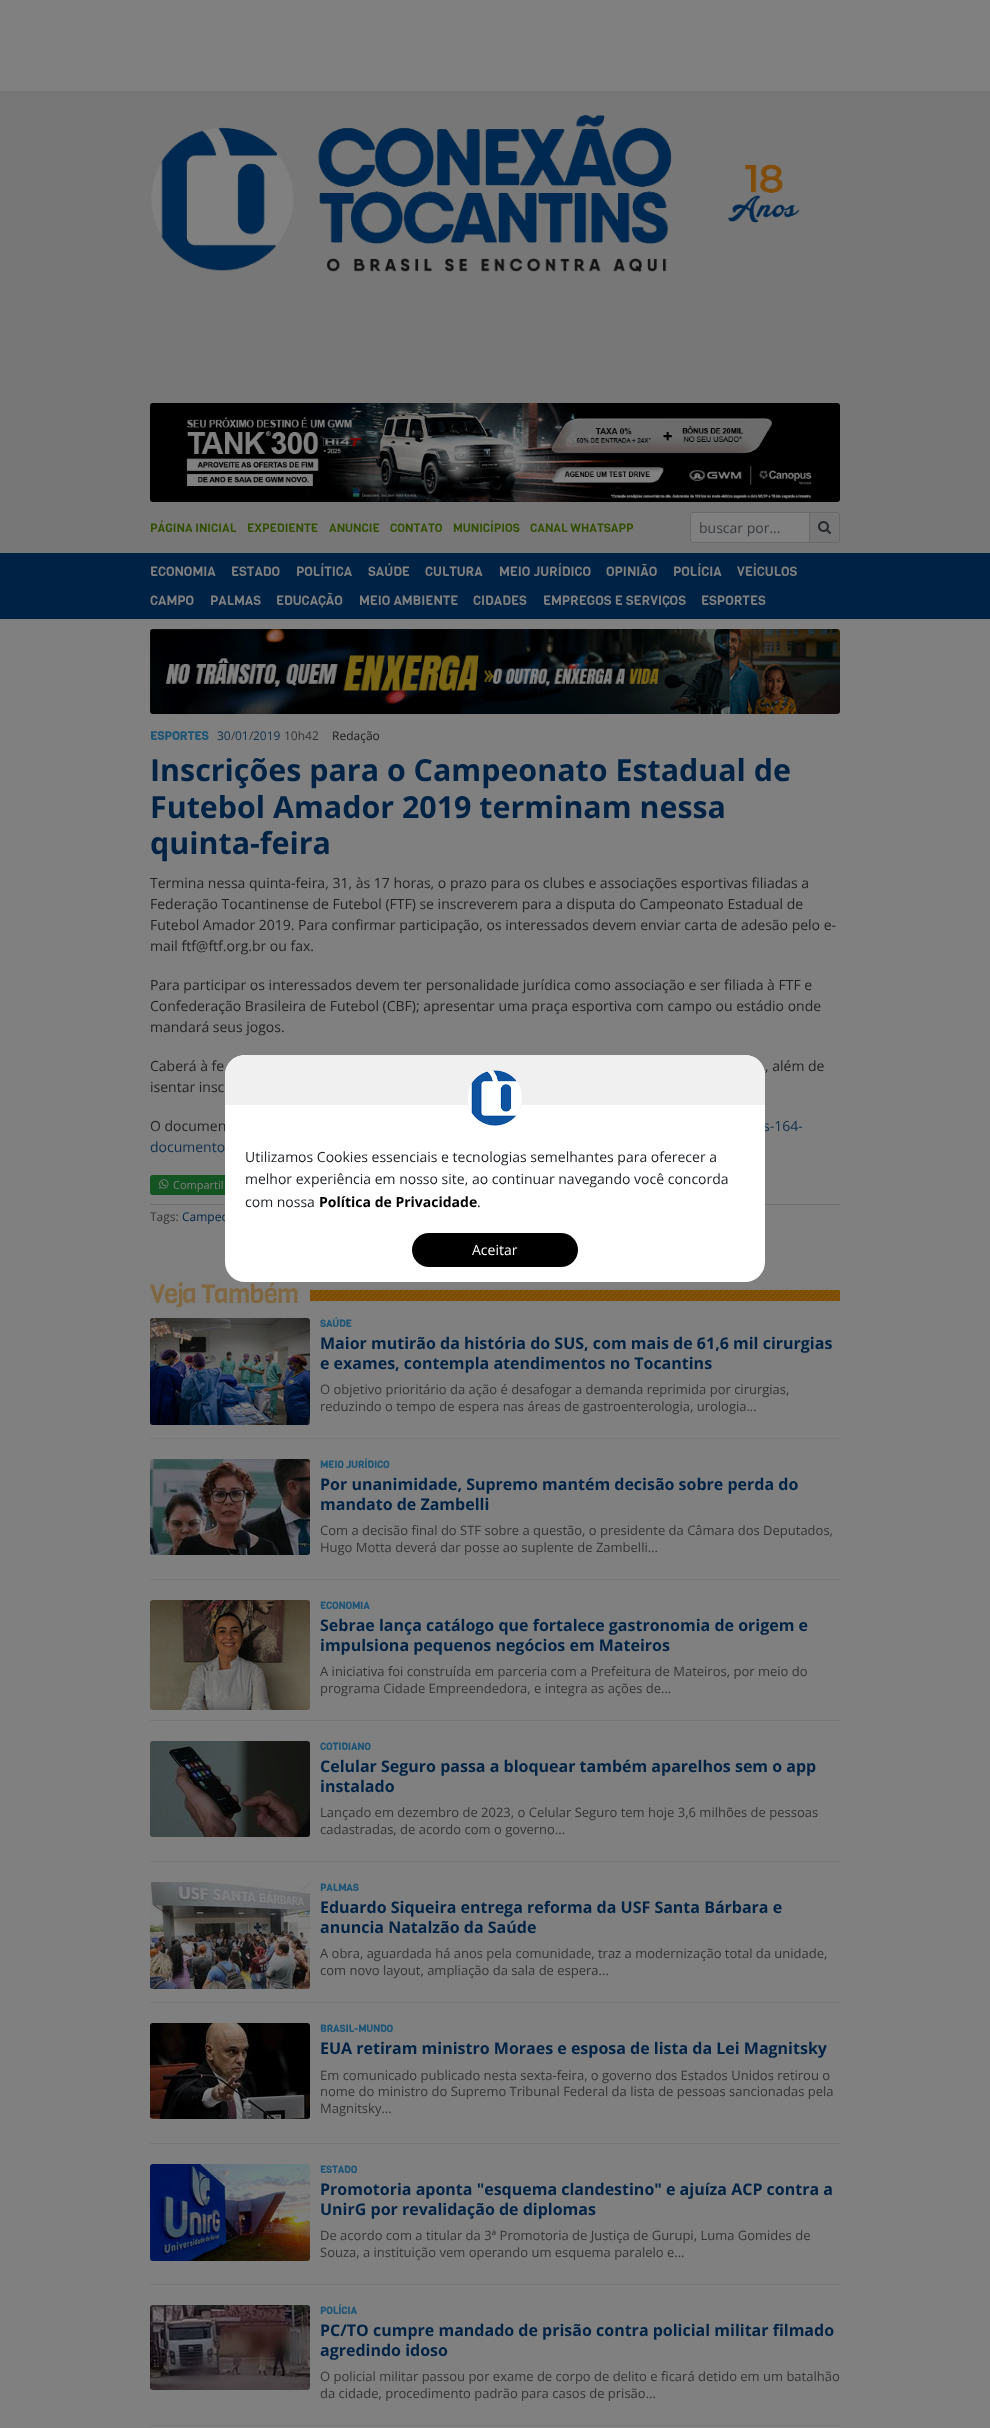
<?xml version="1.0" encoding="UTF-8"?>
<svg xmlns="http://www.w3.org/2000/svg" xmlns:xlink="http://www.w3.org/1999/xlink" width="990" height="2428">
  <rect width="100%" height="100%" fill="#808080" />
  <rect y="91" width="990" height="462" fill="#777777" />
  <image x="151" y="115" width="649" height="157" xlink:href="image1.png" />
  <image x="150" y="403" width="690" height="99" xlink:href="image2.png" />
  <path d="M 809.5 512.5 h 27.5 c 1.5 0 2.5 1 2.5 2.5 v 25 c 0 1.5 -1 2.5 -2.5 2.5 h -27.5 z" fill="none" stroke="#676a6d" />
  <path d="M 693 512.5 h 116.5 v 30 h -116.5 c -1.5 0 -2.5 -1 -2.5 -2.5 v -25 c 0 -1.5 1 -2.5 2.5 -2.5 z" fill="#808080" stroke="#676a6d" />
  <image x="818" y="521" width="13" height="13" xlink:href="image3.png" />
  <rect y="553" width="990" height="66" fill="#002244" />
  <image x="150" y="629" width="690" height="85" xlink:href="image4.png" />
  <rect x="150" y="1175" width="100" height="20" rx="3" fill="#145423" />
  <image x="159" y="1179" width="10" height="10" xlink:href="image5.png" />
  <rect x="150" y="1204" width="690" height="1" fill="#6f6f6f" />
  <image x="150" y="1280" width="690" height="29" xlink:href="image6.png" />
  <rect x="150" y="1438" width="690" height="1" fill="#777777" />
  <image x="150" y="1318" width="160" height="107" xlink:href="image7.png" />
  <rect x="150" y="1579" width="690" height="1" fill="#777777" />
  <image x="150" y="1459" width="160" height="96" xlink:href="image8.png" />
  <rect x="150" y="1720" width="690" height="1" fill="#777777" />
  <image x="150" y="1600" width="160" height="110" xlink:href="image9.png" />
  <rect x="150" y="1861" width="690" height="1" fill="#777777" />
  <image x="150" y="1741" width="160" height="96" xlink:href="image10.png" />
  <rect x="150" y="2002" width="690" height="1" fill="#777777" />
  <image x="150" y="1882" width="160" height="107" xlink:href="image11.png" />
  <rect x="150" y="2143" width="690" height="1" fill="#777777" />
  <image x="150" y="2023" width="160" height="96" xlink:href="image12.png" />
  <rect x="150" y="2284" width="690" height="1" fill="#777777" />
  <image x="150" y="2164" width="160" height="97" xlink:href="image13.png" />
  <rect x="150" y="2425" width="690" height="1" fill="#777777" />
  <image x="150" y="2305" width="160" height="85" xlink:href="image14.png" />
  <text x="150" y="532" style="font-family: Viga; font-size: 12px; fill: #334d00">PÁGINA INICIAL</text>
  <text x="247" y="532" style="font-family: Viga; font-size: 12px; fill: #334d00">EXPEDIENTE</text>
  <text x="329" y="532" style="font-family: Viga; font-size: 12px; fill: #334d00">ANUNCIE</text>
  <text x="390" y="532" style="font-family: Viga; font-size: 12px; fill: #334d00">CONTATO</text>
  <text x="453" y="532" style="font-family: Viga; font-size: 12px; fill: #334d00">MUNICÍPIOS</text>
  <text x="530" y="532" style="font-family: Viga; font-size: 12px; fill: #334d00">CANAL WHATSAPP</text>
  <text x="699" y="533" style="font-family: Open Sans; font-size: 14px; fill: #363b3f">buscar por...</text>
  <text x="150" y="576" style="font-family: Viga; font-size: 13.25px; fill: #808080">ECONOMIA</text>
  <text x="231" y="576" style="font-family: Viga; font-size: 13.25px; fill: #808080">ESTADO</text>
  <text x="296" y="576" style="font-family: Viga; font-size: 13.25px; fill: #808080">POLÍTICA</text>
  <text x="368" y="576" style="font-family: Viga; font-size: 13.25px; fill: #808080">SAÚDE</text>
  <text x="425" y="576" style="font-family: Viga; font-size: 13.25px; fill: #808080">CULTURA</text>
  <text x="499" y="576" style="font-family: Viga; font-size: 13.25px; fill: #808080">MEIO JURÍDICO</text>
  <text x="606" y="576" style="font-family: Viga; font-size: 13.25px; fill: #808080">OPINIÃO</text>
  <text x="673" y="576" style="font-family: Viga; font-size: 13.25px; fill: #808080">POLÍCIA</text>
  <text x="737" y="576" style="font-family: Viga; font-size: 13.25px; fill: #808080">VEÍCULOS</text>
  <text x="150" y="605" style="font-family: Viga; font-size: 13.25px; fill: #808080">CAMPO</text>
  <text x="210" y="605" style="font-family: Viga; font-size: 13.25px; fill: #808080">PALMAS</text>
  <text x="276" y="605" style="font-family: Viga; font-size: 13.25px; fill: #808080">EDUCAÇÃO</text>
  <text x="359" y="605" style="font-family: Viga; font-size: 13.25px; fill: #808080">MEIO AMBIENTE</text>
  <text x="473" y="605" style="font-family: Viga; font-size: 13.25px; fill: #808080">CIDADES</text>
  <text x="543" y="605" style="font-family: Viga; font-size: 13.25px; fill: #808080">EMPREGOS E SERVIÇOS</text>
  <text x="701" y="605" style="font-family: Viga; font-size: 13.25px; fill: #808080">ESPORTES</text>
  <text x="150" y="740" style="font-family: Viga; font-size: 12px; font-weight: bold; fill: #1e5576">ESPORTES</text>
  <text x="217" y="740" style="font-family: Open Sans; font-size: 12px; fill: #102e4b">30</text>
  <text x="231" y="740" style="font-family: Open Sans; font-size: 12px; fill: #333333">/</text>
  <text x="235" y="740" style="font-family: Open Sans; font-size: 12px; fill: #102e4b">01</text>
  <text x="249" y="740" style="font-family: Open Sans; font-size: 12px; fill: #333333">/</text>
  <text x="253" y="740" style="font-family: Open Sans; font-size: 12px; fill: #102e4b">2019</text>
  <text x="284" y="740" style="font-family: Open Sans; font-size: 12px; fill: #333333">10h42</text>
  <text x="332" y="740" style="font-family: Open Sans; font-size: 12px; fill: #1a1a1a">Redação</text>
  <text x="150" y="781" style="font-family: Open Sans; font-size: 30.4px; font-weight: bold; fill: #002244">Inscrições para o Campeonato Estadual de</text>
  <text x="150" y="818" style="font-family: Open Sans; font-size: 30.4px; font-weight: bold; fill: #002244">Futebol Amador 2019 terminam nessa</text>
  <text x="150" y="854" style="font-family: Open Sans; font-size: 30.4px; font-weight: bold; fill: #002244">quinta-feira</text>
  <text x="150" y="888" style="font-family: Open Sans; font-size: 14px; fill: #222222">Termina nessa quinta-feira, 31, às 17 horas, o prazo para os clubes e associações esportivas filiadas a</text>
  <text x="150" y="909" style="font-family: Open Sans; font-size: 14px; fill: #222222">Federação Tocantinense de Futebol (FTF) se inscreverem para a disputa do Campeonato Estadual de</text>
  <text x="150" y="930" style="font-family: Open Sans; font-size: 14px; fill: #222222">Futebol Amador 2019. Para confirmar participação, os interessados devem enviar carta de adesão pelo e-</text>
  <text x="150" y="951" style="font-family: Open Sans; font-size: 14px; fill: #222222">mail ftf@ftf.org.br ou fax.</text>
  <text x="150" y="990" style="font-family: Open Sans; font-size: 14px; fill: #222222">Para participar os interessados devem ter personalidade jurídica como associação e ser filiada à FTF e</text>
  <text x="150" y="1011" style="font-family: Open Sans; font-size: 14px; fill: #222222">Confederação Brasileira de Futebol (CBF); apresentar uma praça esportiva com campo ou estádio onde</text>
  <text x="150" y="1032" style="font-family: Open Sans; font-size: 14px; fill: #222222">mandará seus jogos.</text>
  <text x="150" y="1071" style="font-family: Open Sans; font-size: 14px; fill: #222222">Caberá à fe</text>
  <text x="765" y="1071" style="font-family: Open Sans; font-size: 14px; fill: #222222">, além de</text>
  <text x="150" y="1092" style="font-family: Open Sans; font-size: 14px; fill: #222222">isentar insc</text>
  <text x="150" y="1131" style="font-family: Open Sans; font-size: 14px; fill: #222222">O documen</text>
  <text x="763" y="1131" style="font-family: Open Sans; font-size: 14px; fill: #102e4b">s-164-</text>
  <text x="150" y="1152" style="font-family: Open Sans; font-size: 14px; fill: #102e4b">documento</text>
  <text x="173" y="1189" style="font-family: Open Sans; font-size: 11px; fill: #808080">Compartil</text>
  <text x="150" y="1221" style="font-family: Open Sans; font-size: 12px; fill: #333333">Tags:</text>
  <text x="182" y="1221" style="font-family: Open Sans; font-size: 12px; fill: #002244">Campeo</text>
  <text x="320" y="1327" style="font-family: Viga; font-size: 10px; font-weight: bold; fill: #1e5576">SAÚDE</text>
  <text x="320" y="1349" style="font-family: Open Sans; font-size: 16px; font-weight: bold; fill: #002244">Maior mutirão da história do SUS, com mais de 61,6 mil cirurgias</text>
  <text x="320" y="1369" style="font-family: Open Sans; font-size: 16px; font-weight: bold; fill: #002244">e exames, contempla atendimentos no Tocantins</text>
  <text x="320" y="1394" style="font-family: Open Sans; font-size: 13px; fill: #333333">O objetivo prioritário da ação é desafogar a demanda reprimida por cirurgias,</text>
  <text x="320" y="1411" style="font-family: Open Sans; font-size: 13px; fill: #333333">reduzindo o tempo de espera nas áreas de gastroenterologia, urologia...</text>
  <text x="320" y="1468" style="font-family: Viga; font-size: 10px; font-weight: bold; fill: #1e5576">MEIO JURÍDICO</text>
  <text x="320" y="1490" style="font-family: Open Sans; font-size: 16px; font-weight: bold; fill: #002244">Por unanimidade, Supremo mantém decisão sobre perda do</text>
  <text x="320" y="1510" style="font-family: Open Sans; font-size: 16px; font-weight: bold; fill: #002244">mandato de Zambelli</text>
  <text x="320" y="1535" style="font-family: Open Sans; font-size: 13px; fill: #333333">Com a decisão final do STF sobre a questão, o presidente da Câmara dos Deputados,</text>
  <text x="320" y="1552" style="font-family: Open Sans; font-size: 13px; fill: #333333">Hugo Motta deverá dar posse ao suplente de Zambelli...</text>
  <text x="320" y="1609" style="font-family: Viga; font-size: 10px; font-weight: bold; fill: #1e5576">ECONOMIA</text>
  <text x="320" y="1631" style="font-family: Open Sans; font-size: 16px; font-weight: bold; fill: #002244">Sebrae lança catálogo que fortalece gastronomia de origem e</text>
  <text x="320" y="1651" style="font-family: Open Sans; font-size: 16px; font-weight: bold; fill: #002244">impulsiona pequenos negócios em Mateiros</text>
  <text x="320" y="1676" style="font-family: Open Sans; font-size: 13px; fill: #333333">A iniciativa foi construída em parceria com a Prefeitura de Mateiros, por meio do</text>
  <text x="320" y="1693" style="font-family: Open Sans; font-size: 13px; fill: #333333">programa Cidade Empreendedora, e integra as ações de...</text>
  <text x="320" y="1750" style="font-family: Viga; font-size: 10px; font-weight: bold; fill: #1e5576">COTIDIANO</text>
  <text x="320" y="1772" style="font-family: Open Sans; font-size: 16px; font-weight: bold; fill: #002244">Celular Seguro passa a bloquear também aparelhos sem o app</text>
  <text x="320" y="1792" style="font-family: Open Sans; font-size: 16px; font-weight: bold; fill: #002244">instalado</text>
  <text x="320" y="1817" style="font-family: Open Sans; font-size: 13px; fill: #333333">Lançado em dezembro de 2023, o Celular Seguro tem hoje 3,6 milhões de pessoas</text>
  <text x="320" y="1834" style="font-family: Open Sans; font-size: 13px; fill: #333333">cadastradas, de acordo com o governo...</text>
  <text x="320" y="1891" style="font-family: Viga; font-size: 10px; font-weight: bold; fill: #1e5576">PALMAS</text>
  <text x="320" y="1913" style="font-family: Open Sans; font-size: 16px; font-weight: bold; fill: #002244">Eduardo Siqueira entrega reforma da USF Santa Bárbara e</text>
  <text x="320" y="1933" style="font-family: Open Sans; font-size: 16px; font-weight: bold; fill: #002244">anuncia Natalzão da Saúde</text>
  <text x="320" y="1958" style="font-family: Open Sans; font-size: 13px; fill: #333333">A obra, aguardada há anos pela comunidade, traz a modernização total da unidade,</text>
  <text x="320" y="1975" style="font-family: Open Sans; font-size: 13px; fill: #333333">com novo layout, ampliação da sala de espera...</text>
  <text x="320" y="2032" style="font-family: Viga; font-size: 10px; font-weight: bold; fill: #1e5576">BRASIL-MUNDO</text>
  <text x="320" y="2054" style="font-family: Open Sans; font-size: 16px; font-weight: bold; fill: #002244">EUA retiram ministro Moraes e esposa de lista da Lei Magnitsky</text>
  <text x="320" y="2080" style="font-family: Open Sans; font-size: 13px; fill: #333333">Em comunicado publicado nesta sexta-feira, o governo dos Estados Unidos retirou o</text>
  <text x="320" y="2096" style="font-family: Open Sans; font-size: 13px; fill: #333333">nome do ministro do Supremo Tribunal Federal da lista de pessoas sancionadas pela</text>
  <text x="320" y="2113" style="font-family: Open Sans; font-size: 13px; fill: #333333">Magnitsky...</text>
  <text x="320" y="2173" style="font-family: Viga; font-size: 10px; font-weight: bold; fill: #1e5576">ESTADO</text>
  <text x="320" y="2195" style="font-family: Open Sans; font-size: 16px; font-weight: bold; fill: #002244">Promotoria aponta "esquema clandestino" e ajuíza ACP contra a</text>
  <text x="320" y="2215" style="font-family: Open Sans; font-size: 16px; font-weight: bold; fill: #002244">UnirG por revalidação de diplomas</text>
  <text x="320" y="2240" style="font-family: Open Sans; font-size: 13px; fill: #333333">De acordo com a titular da 3ª Promotoria de Justiça de Gurupi, Luma Gomides de</text>
  <text x="320" y="2257" style="font-family: Open Sans; font-size: 13px; fill: #333333">Souza, a instituição vem operando um esquema paralelo e...</text>
  <text x="320" y="2314" style="font-family: Viga; font-size: 10px; font-weight: bold; fill: #1e5576">POLÍCIA</text>
  <text x="320" y="2336" style="font-family: Open Sans; font-size: 16px; font-weight: bold; fill: #002244">PC/TO cumpre mandado de prisão contra policial militar filmado</text>
  <text x="320" y="2356" style="font-family: Open Sans; font-size: 16px; font-weight: bold; fill: #002244">agredindo idoso</text>
  <text x="320" y="2381" style="font-family: Open Sans; font-size: 13px; fill: #333333">O policial militar passou por exame de corpo de delito e ficará detido em um batalhão</text>
  <text x="320" y="2398" style="font-family: Open Sans; font-size: 13px; fill: #333333">da cidade, procedimento padrão para casos de prisão...</text>
  <rect x="225" y="1055" width="540" height="227" rx="20" fill="#ffffff" />
  <path d="M 245 1055 h 500 c 11 0 20 9 20 20 v 30 h -540 v -30 c 0 -11 9 -20 20 -20 z" fill="#f0f0f0" />
  <image x="468" y="1070" width="54" height="56" xlink:href="image15.png" />
  <text x="245" y="1162" style="font-family: Open Sans; font-size: 14px; fill: #212529">Utilizamos Cookies essenciais e tecnologias semelhantes para oferecer a</text>
  <text x="245" y="1184" style="font-family: Open Sans; font-size: 14px; fill: #212529">melhor experiência em nosso site, ao continuar navegando você concorda</text>
  <text x="245" y="1207" style="font-family: Open Sans; font-size: 14px; fill: #212529">com nossa</text>
  <text x="319" y="1207" style="font-family: Open Sans; font-size: 14px; font-weight: bold; fill: #000000">Política de Privacidade</text>
  <text x="477" y="1207" style="font-family: Open Sans; font-size: 14px; fill: #212529">.</text>
  <rect x="412" y="1233" width="166" height="34" rx="17" fill="#000000" />
  <text x="472" y="1255" style="font-family: Open Sans; font-size: 14px; fill: #ffffff">Aceitar</text>
</svg>
